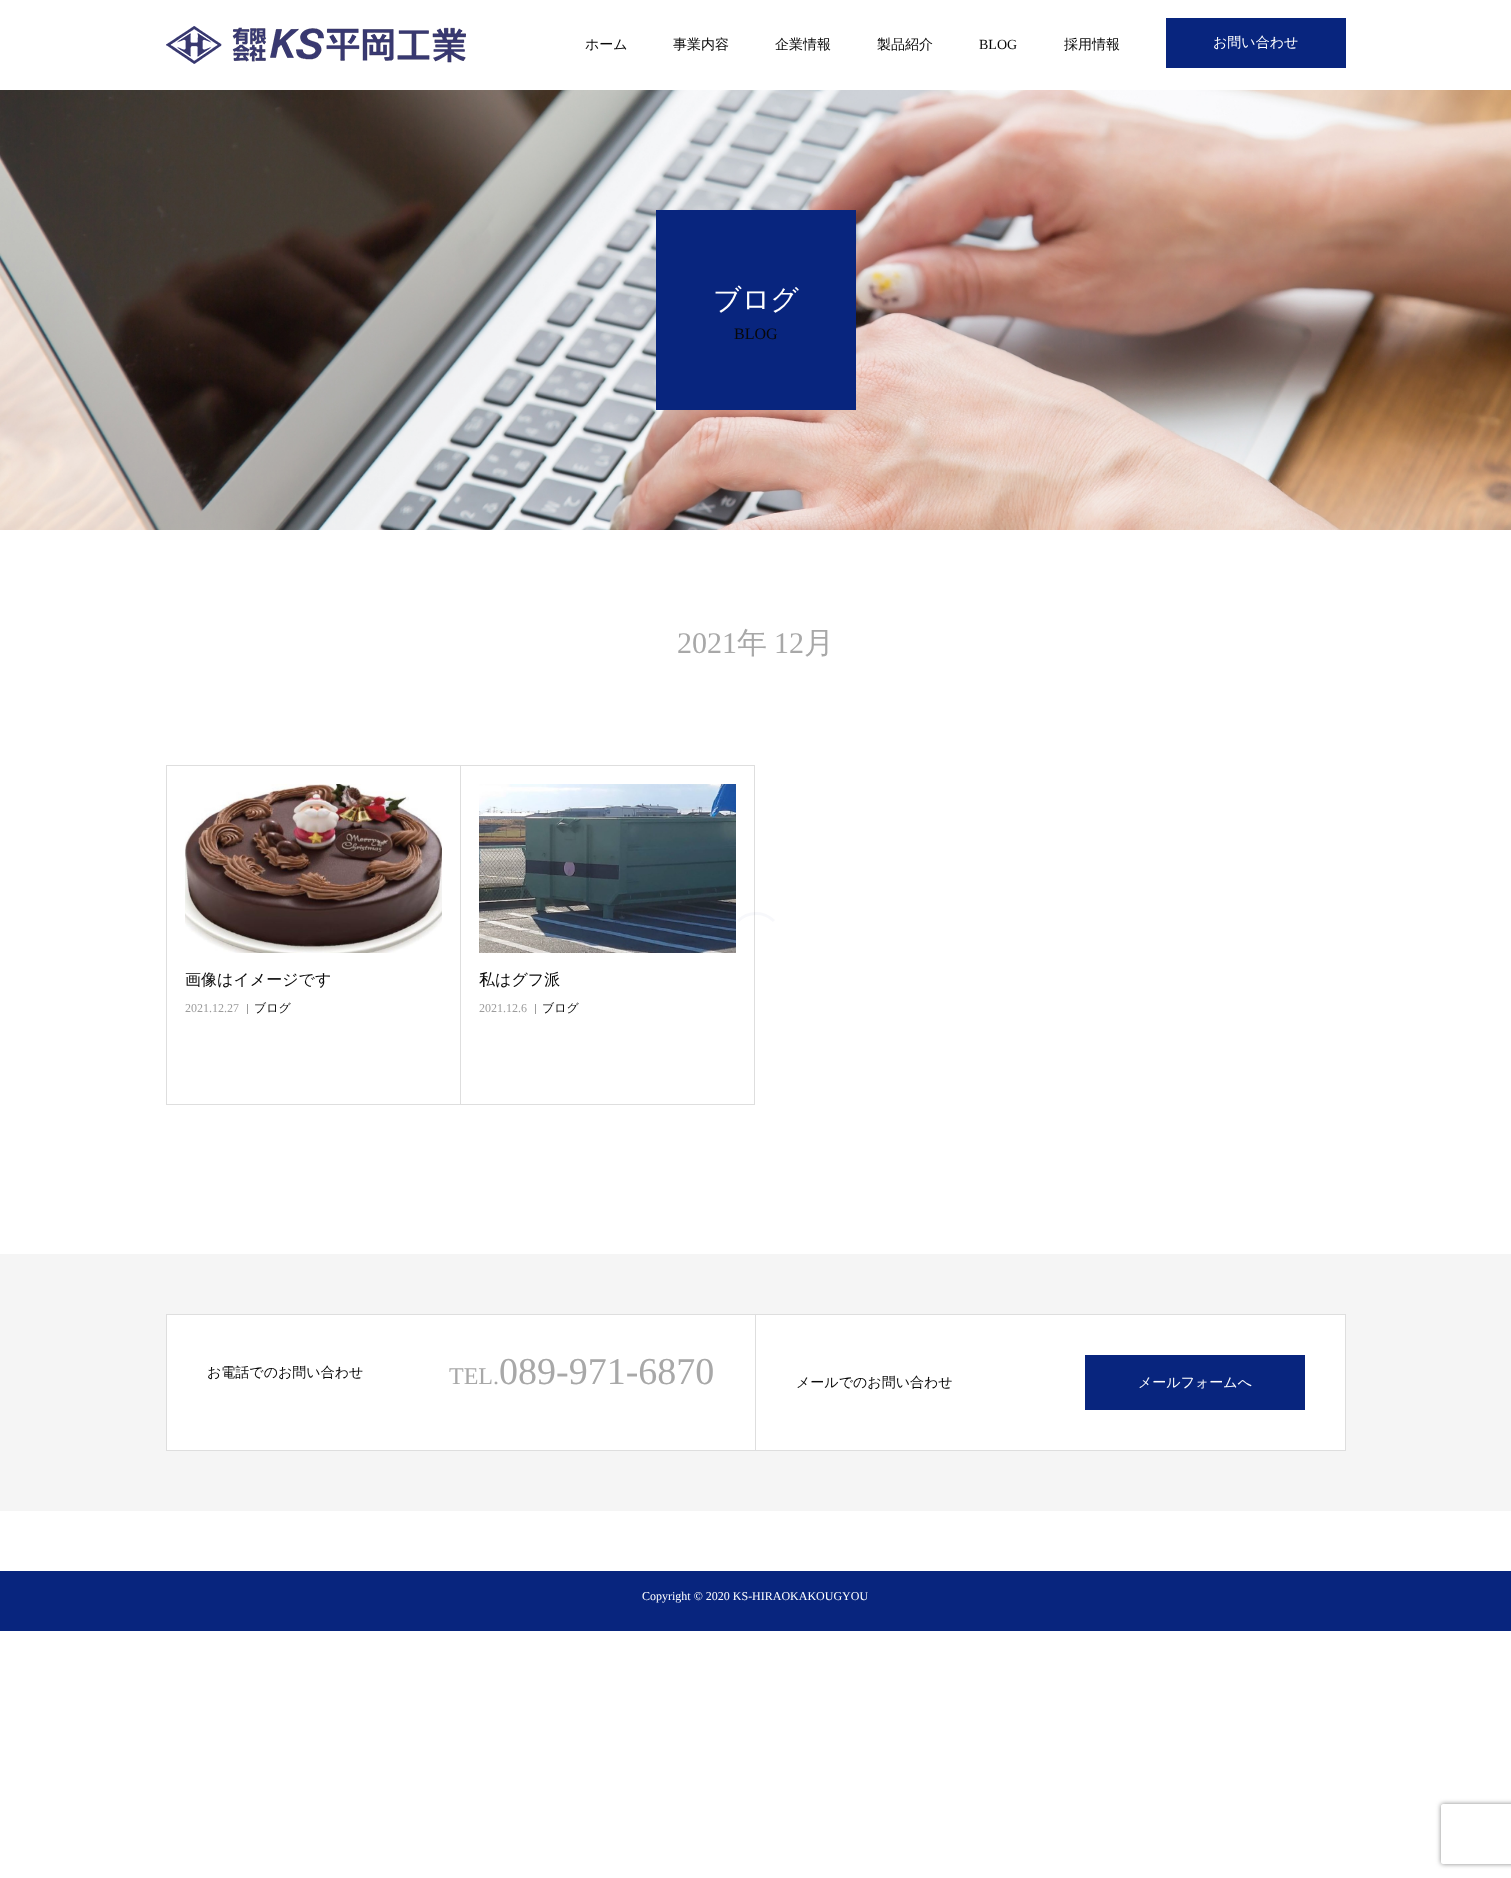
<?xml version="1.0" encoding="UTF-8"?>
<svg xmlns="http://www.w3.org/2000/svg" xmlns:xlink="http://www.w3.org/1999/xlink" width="1511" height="1878">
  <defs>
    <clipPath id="clip1"><path d="M 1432 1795 h 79 v 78 h -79 z m 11 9 h 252 c 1 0 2 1 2 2 v 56 c 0 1 -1 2 -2 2 h -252 c -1 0 -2 -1 -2 -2 v -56 c 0 -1 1 -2 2 -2 z" clip-rule="evenodd" /></clipPath>
  </defs>
  <rect width="100%" height="100%" fill="#ffffff" />
  <image x="166" y="26" width="300" height="38" xlink:href="image1.png" />
  <rect x="1166" y="18" width="180" height="50" fill="#08257e" />
  <image x="0" y="90" width="1511" height="440" xlink:href="image2.png" />
  <rect x="656" y="210" width="200" height="200" fill="#08257e" />
  <rect x="166.5" y="765.5" width="294" height="339" fill="none" stroke="#dedede" />
  <image x="185" y="784" width="257" height="169" xlink:href="image3.png" />
  <rect x="247" y="1004" width="1" height="10" fill="#9c9c9c" />
  <rect x="460.5" y="765.5" width="294" height="339" fill="none" stroke="#dedede" />
  <image x="479" y="784" width="257" height="169" xlink:href="image4.png" />
  <rect x="535" y="1004" width="1" height="10" fill="#9c9c9c" />
  <rect y="1254" width="1511" height="257" fill="#f5f5f5" />
  <rect x="166.5" y="1314.5" width="589" height="136" fill="#ffffff" stroke="#dedede" />
  <rect x="756" y="1315" width="589" height="135" fill="#ffffff" />
  <rect x="756" y="1314" width="590" height="1" fill="#dedede" />
  <rect x="1345" y="1314" width="1" height="137" fill="#dedede" />
  <rect x="756" y="1450" width="590" height="1" fill="#dedede" />
  <rect x="1085" y="1355" width="220" height="55" fill="#08257e" />
  <rect y="1571" width="1511" height="60" fill="#08257e" />
  <path d="M 738 921 c 10 -10 26 -10 36 0" fill="none" stroke="#001e7a" stroke-opacity="0.03" stroke-width="3" />
  <g clip-path="url(#clip1)">
    <rect x="1441" y="1804" width="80" height="60" rx="2" fill="#848484" filter="blur(2.5px)" />
  </g>
  <text x="585" y="49" style="font-family: WenQuanYi Zen Hei; font-size: 14px; font-weight: 500; fill: #080808">ホーム</text>
  <text x="673" y="49" style="font-family: WenQuanYi Zen Hei; font-size: 14px; font-weight: 500; fill: #080808">事業内容</text>
  <text x="775" y="49" style="font-family: WenQuanYi Zen Hei; font-size: 14px; font-weight: 500; fill: #080808">企業情報</text>
  <text x="877" y="49" style="font-family: WenQuanYi Zen Hei; font-size: 14px; font-weight: 500; fill: #080808">製品紹介</text>
  <text x="979" y="49" style="font-family: Liberation Serif; font-size: 14px; fill: #080808">BLOG</text>
  <text x="1064" y="49" style="font-family: WenQuanYi Zen Hei; font-size: 14px; font-weight: 500; fill: #080808">採用情報</text>
  <text x="1213" y="47" style="font-family: WenQuanYi Zen Hei; font-size: 14px; font-weight: 500; fill: #ffffff">お問い合わせ</text>
  <text x="713" y="309" style="font-family: WenQuanYi Zen Hei; font-size: 28px; font-weight: 500; fill: #ffffff">ブログ</text>
  <text x="734" y="339" style="font-family: Liberation Serif; font-size: 16px; fill: #080808">BLOG</text>
  <text x="677" y="653" style="font-family: Liberation Serif; font-size: 30px; fill: #a8a8a8">2021</text>
  <text x="737" y="653" style="font-family: WenQuanYi Zen Hei; font-size: 30px; font-weight: 500; fill: #a8a8a8">年</text>
  <text x="774" y="653" style="font-family: Liberation Serif; font-size: 30px; fill: #a8a8a8">12</text>
  <text x="804" y="653" style="font-family: WenQuanYi Zen Hei; font-size: 30px; font-weight: 500; fill: #a8a8a8">月</text>
  <text x="185" y="985" style="font-family: WenQuanYi Zen Hei; font-size: 16px; font-weight: 500; fill: #080808">画像はイメージです</text>
  <text x="185" y="1012" style="font-family: Liberation Serif; font-size: 12px; fill: #9c9c9c">2021.12.27</text>
  <text x="254" y="1012" style="font-family: WenQuanYi Zen Hei; font-size: 12px; font-weight: 500; fill: #080808">ブログ</text>
  <text x="479" y="985" style="font-family: WenQuanYi Zen Hei; font-size: 16px; font-weight: 500; fill: #080808">私はグフ派</text>
  <text x="479" y="1012" style="font-family: Liberation Serif; font-size: 12px; fill: #9c9c9c">2021.12.6</text>
  <text x="542" y="1012" style="font-family: WenQuanYi Zen Hei; font-size: 12px; font-weight: 500; fill: #080808">ブログ</text>
  <text x="207" y="1377" style="font-family: WenQuanYi Zen Hei; font-size: 14px; font-weight: 500; fill: #080808">お電話でのお問い合わせ</text>
  <text x="449" y="1384" style="font-family: Liberation Serif; font-size: 24px; fill: #a8a8a8">TEL.</text>
  <text x="499" y="1384" style="font-family: Liberation Serif; font-size: 38px; fill: #a8a8a8">089-971-6870</text>
  <text x="796" y="1387" style="font-family: WenQuanYi Zen Hei; font-size: 14px; font-weight: 500; fill: #080808">メールでのお問い合わせ</text>
  <text x="1138" y="1387" style="font-family: WenQuanYi Zen Hei; font-size: 14px; font-weight: 500; fill: #ffffff">メールフォームへ</text>
  <text x="642" y="1600" style="font-family: Liberation Serif; font-size: 12px; fill: #ffffff">Copyright © 2020 KS-HIRAOKAKOUGYOU</text>
</svg>
